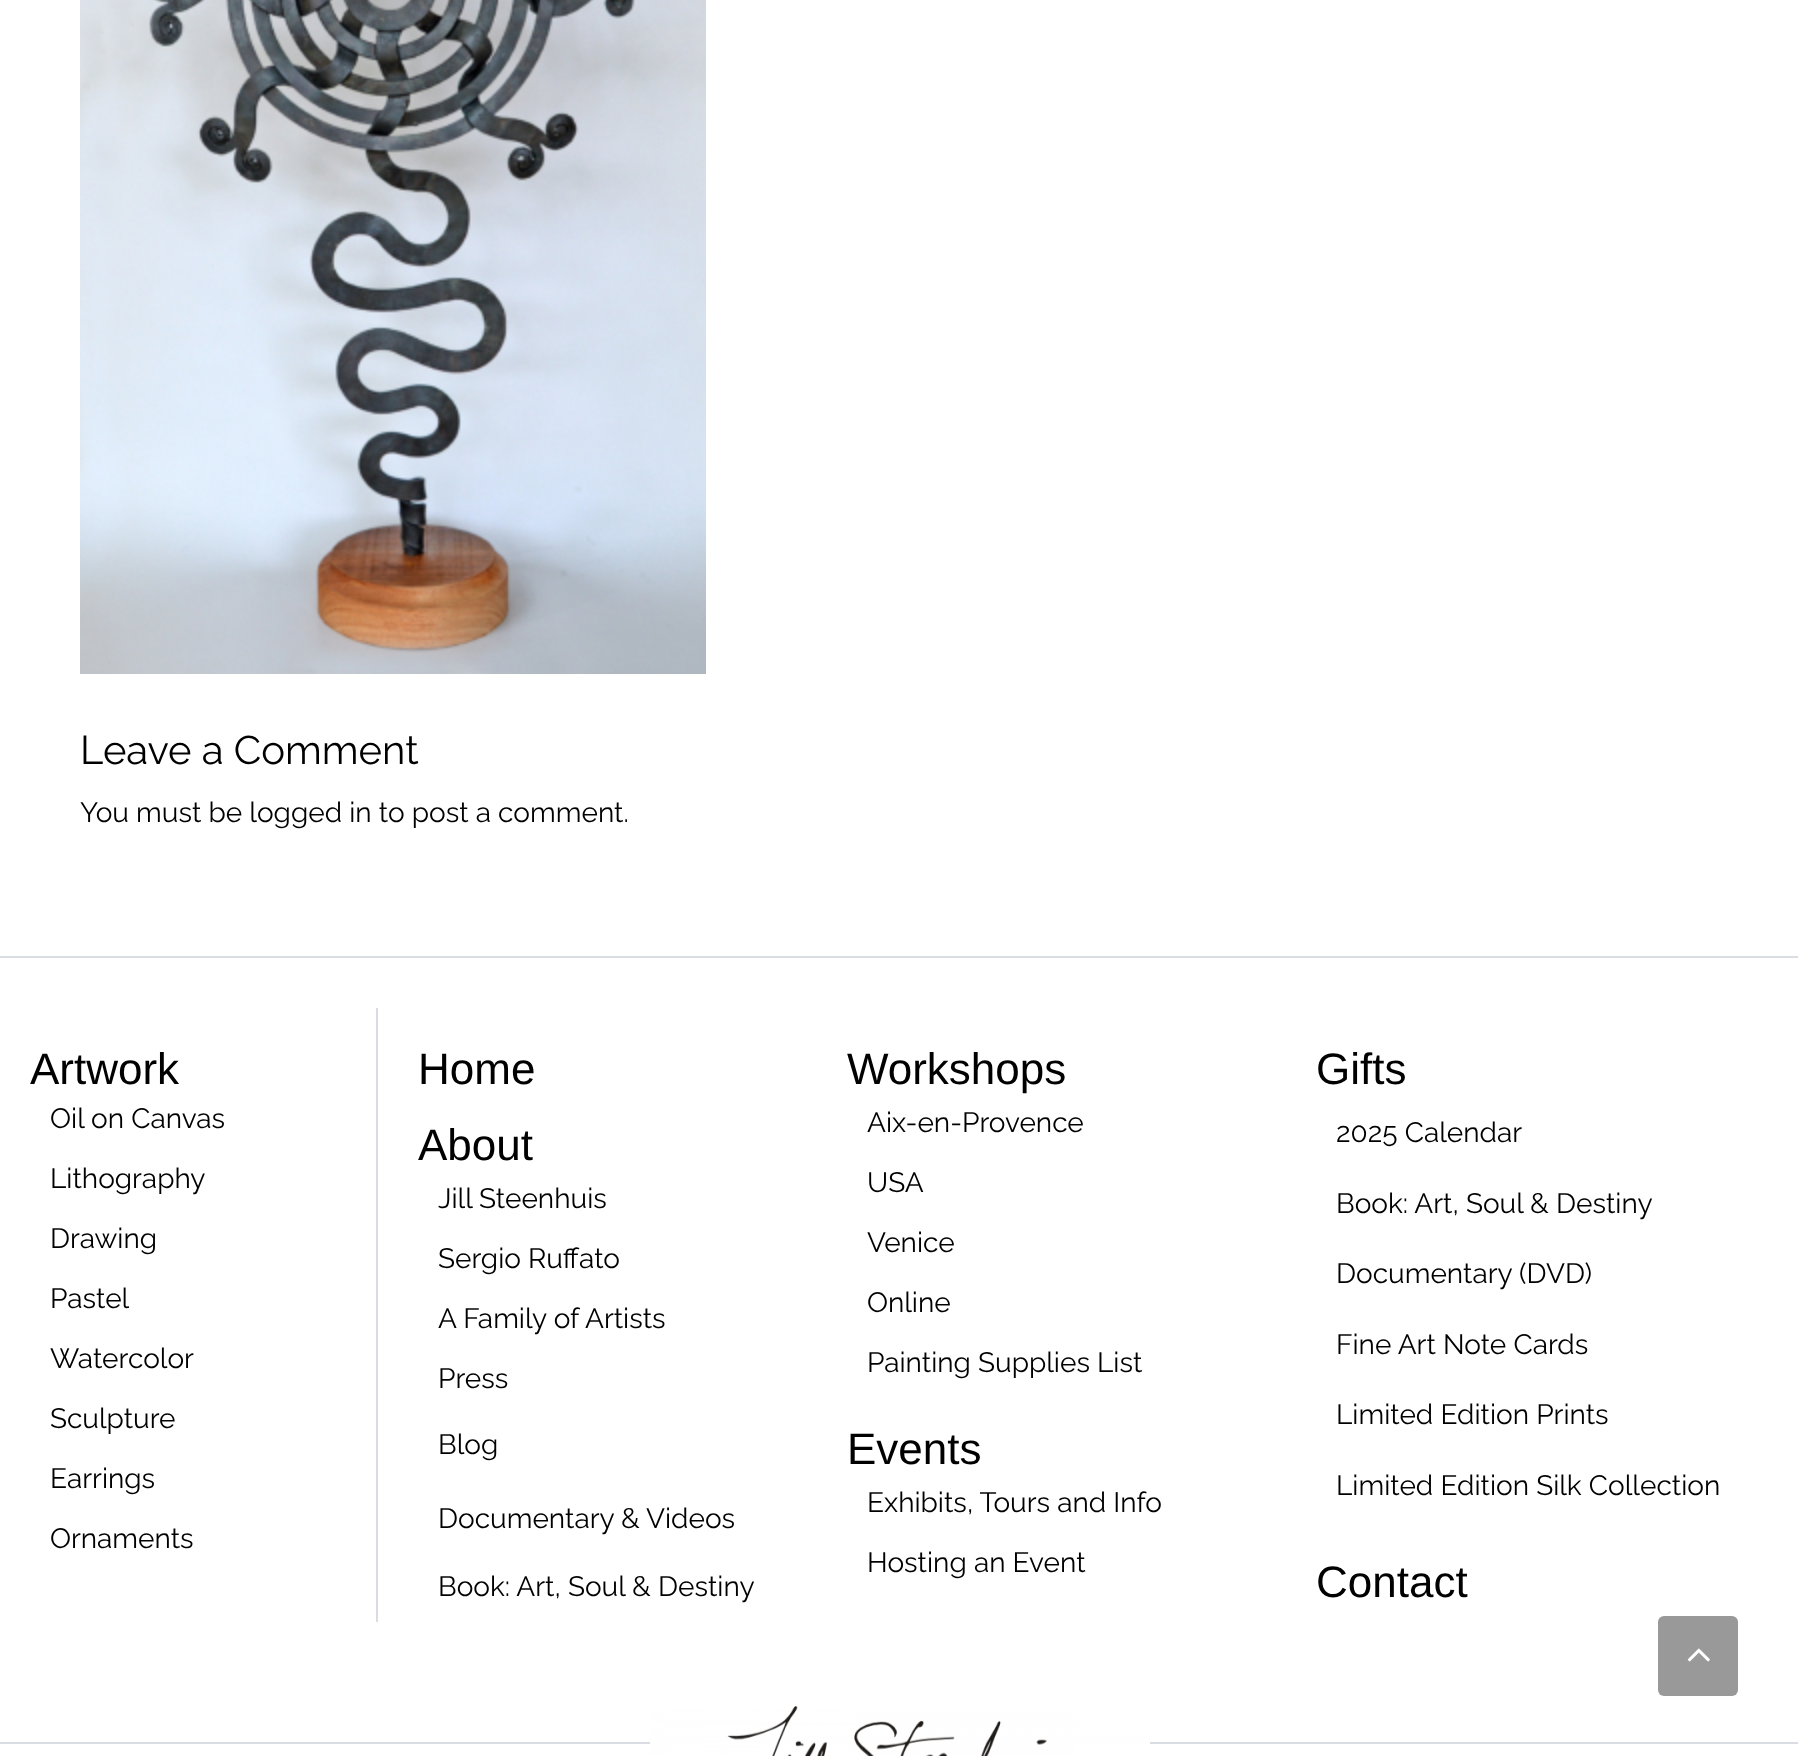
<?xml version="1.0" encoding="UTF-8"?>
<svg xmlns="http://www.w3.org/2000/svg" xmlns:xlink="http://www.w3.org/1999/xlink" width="1798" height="1756">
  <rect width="100%" height="100%" fill="#d9dce1" />
  <rect width="1798" height="956" fill="#ffffff" />
  <image x="80" y="0" width="626" height="674" xlink:href="image1.png" />
  <rect y="958" width="1798" height="784" fill="#ffffff" />
  <rect x="376" y="1008" width="2" height="614" fill="#d9dce1" />
  <rect y="1744" width="1798" height="12" fill="#ffffff" />
  <image x="650" y="1706" width="500" height="50" xlink:href="image2.png" />
  <rect x="1658" y="1616" width="80" height="80" rx="6" fill="#999999" />
  <image x="1687" y="1648" width="23" height="14" xlink:href="image3.png" />
  <text x="80" y="764" style="font-family: Raleway; font-size: 40px; fill: #000000">Leave a Comment</text>
  <text x="80" y="822" style="font-family: Raleway; font-size: 28px; fill: #000000">You must be logged in to post a comment.</text>
  <text x="30" y="1084" style="font-family: Liberation Sans; font-size: 44px; fill: #000000">Artwork</text>
  <text x="50" y="1128" style="font-family: Raleway; font-size: 28px; fill: #000000">Oil on Canvas</text>
  <text x="50" y="1188" style="font-family: Raleway; font-size: 28px; fill: #000000">Lithography</text>
  <text x="50" y="1248" style="font-family: Raleway; font-size: 28px; fill: #000000">Drawing</text>
  <text x="50" y="1308" style="font-family: Raleway; font-size: 28px; fill: #000000">Pastel</text>
  <text x="50" y="1368" style="font-family: Raleway; font-size: 28px; fill: #000000">Watercolor</text>
  <text x="50" y="1428" style="font-family: Raleway; font-size: 28px; fill: #000000">Sculpture</text>
  <text x="50" y="1488" style="font-family: Raleway; font-size: 28px; fill: #000000">Earrings</text>
  <text x="50" y="1548" style="font-family: Raleway; font-size: 28px; fill: #000000">Ornaments</text>
  <text x="418" y="1084" style="font-family: Liberation Sans; font-size: 44px; fill: #000000">Home</text>
  <text x="418" y="1160" style="font-family: Liberation Sans; font-size: 44px; fill: #000000">About</text>
  <text x="438" y="1208" style="font-family: Raleway; font-size: 28px; fill: #000000">Jill Steenhuis</text>
  <text x="438" y="1268" style="font-family: Raleway; font-size: 28px; fill: #000000">Sergio Ruffato</text>
  <text x="438" y="1328" style="font-family: Raleway; font-size: 28px; fill: #000000">A Family of Artists</text>
  <text x="438" y="1388" style="font-family: Raleway; font-size: 28px; fill: #000000">Press</text>
  <text x="438" y="1454" style="font-family: Raleway; font-size: 28px; fill: #000000">Blog</text>
  <text x="438" y="1528" style="font-family: Raleway; font-size: 28px; fill: #000000">Documentary &amp; Videos</text>
  <text x="438" y="1596" style="font-family: Raleway; font-size: 28px; fill: #000000">Book: Art, Soul &amp; Destiny</text>
  <text x="847" y="1084" style="font-family: Liberation Sans; font-size: 44px; fill: #000000">Workshops</text>
  <text x="867" y="1132" style="font-family: Raleway; font-size: 28px; fill: #000000">Aix-en-Provence</text>
  <text x="867" y="1192" style="font-family: Raleway; font-size: 28px; fill: #000000">USA</text>
  <text x="867" y="1252" style="font-family: Raleway; font-size: 28px; fill: #000000">Venice</text>
  <text x="867" y="1312" style="font-family: Raleway; font-size: 28px; fill: #000000">Online</text>
  <text x="867" y="1372" style="font-family: Raleway; font-size: 28px; fill: #000000">Painting Supplies List</text>
  <text x="847" y="1464" style="font-family: Liberation Sans; font-size: 44px; fill: #000000">Events</text>
  <text x="867" y="1512" style="font-family: Raleway; font-size: 28px; fill: #000000">Exhibits, Tours and Info</text>
  <text x="867" y="1572" style="font-family: Raleway; font-size: 28px; fill: #000000">Hosting an Event</text>
  <text x="1316" y="1084" style="font-family: Liberation Sans; font-size: 44px; fill: #000000">Gifts</text>
  <text x="1336" y="1142" style="font-family: Raleway; font-size: 28px; fill: #000000">2025 Calendar</text>
  <text x="1336" y="1213" style="font-family: Raleway; font-size: 28px; fill: #000000">Book: Art, Soul &amp; Destiny</text>
  <text x="1336" y="1283" style="font-family: Raleway; font-size: 28px; fill: #000000">Documentary (DVD)</text>
  <text x="1336" y="1354" style="font-family: Raleway; font-size: 28px; fill: #000000">Fine Art Note Cards</text>
  <text x="1336" y="1424" style="font-family: Raleway; font-size: 28px; fill: #000000">Limited Edition Prints</text>
  <text x="1336" y="1495" style="font-family: Raleway; font-size: 28px; fill: #000000">Limited Edition Silk Collection</text>
  <text x="1316" y="1597" style="font-family: Liberation Sans; font-size: 44px; fill: #000000">Contact</text>
</svg>
